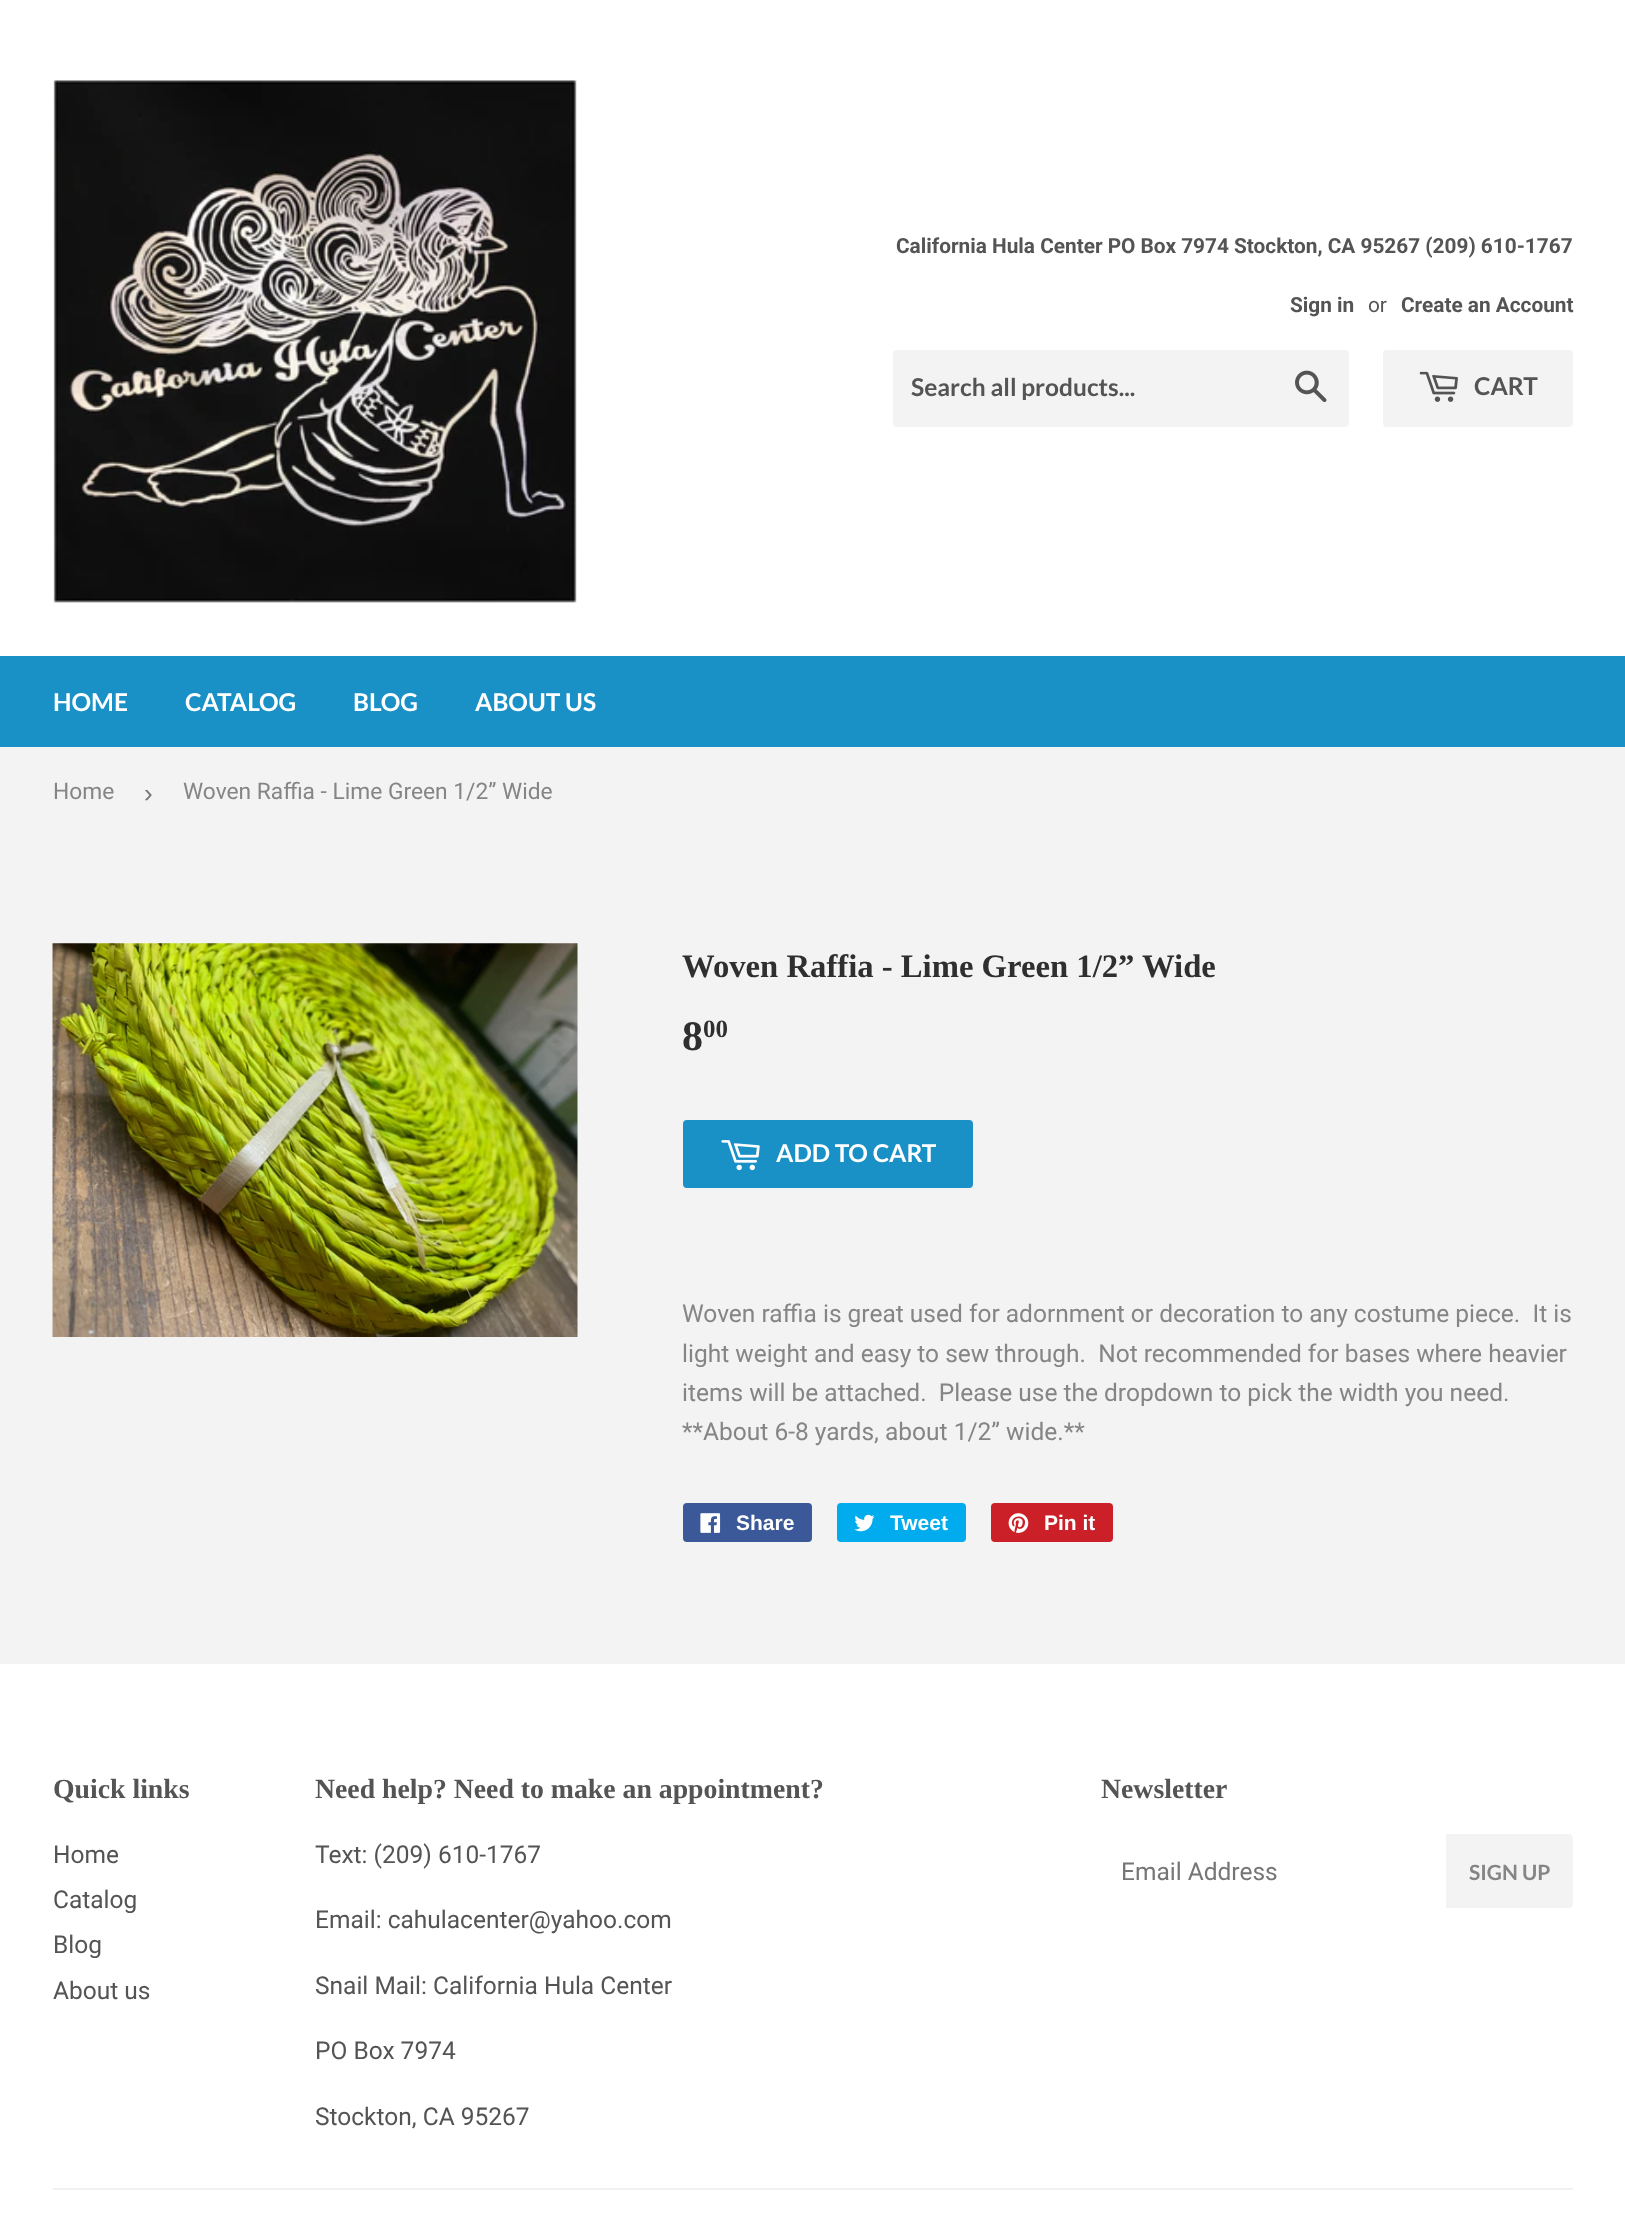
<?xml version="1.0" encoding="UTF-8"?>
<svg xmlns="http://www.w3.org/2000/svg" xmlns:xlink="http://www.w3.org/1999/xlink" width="1625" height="2236">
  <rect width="100%" height="100%" fill="#f3f3f3" />
  <rect width="1625" height="656" fill="#ffffff" />
  <image x="53" y="79" width="524" height="524" xlink:href="image1.png" />
  <rect x="893" y="350" width="456" height="77" rx="4" fill="#f3f3f3" />
  <image x="1295" y="370" width="32" height="32" xlink:href="image2.png" />
  <rect x="1383" y="350" width="190" height="77" rx="4" fill="#f3f3f3" />
  <image x="1419" y="371" width="39" height="31" xlink:href="image3.png" />
  <rect y="656" width="1625" height="91" fill="#1990c6" />
  <image x="52" y="943" width="526" height="394" xlink:href="image4.png" />
  <rect x="683" y="1120" width="290" height="68" rx="4" fill="#1990c6" />
  <image x="721" y="1140" width="39" height="31" xlink:href="image5.png" />
  <rect x="683" y="1503" width="129" height="39" rx="4" fill="#3b5998" />
  <image x="700" y="1513" width="21" height="20" xlink:href="image6.png" />
  <rect x="837" y="1503" width="129" height="39" rx="4" fill="#00aced" />
  <image x="854" y="1514" width="21" height="18" xlink:href="image7.png" />
  <rect x="991" y="1503" width="122" height="39" rx="4" fill="#cb2027" />
  <image x="1008" y="1513" width="21" height="20" xlink:href="image8.png" />
  <rect y="1664" width="1625" height="572" fill="#ffffff" />
  <path d="M 1446 1834 h 123 c 2 0 4 2 4 4 v 66 c 0 2 -2 4 -4 4 h -123 z" fill="#f3f3f3" />
  <rect x="53" y="2188" width="1520" height="2" fill="#f2f2f2" />
  <text x="896" y="253" style="font-family: Roboto; font-size: 20.8px; font-weight: bold; fill: #545454">California Hula Center PO Box 7974 Stockton, CA 95267 (209) 610-1767</text>
  <text x="1290" y="312" style="font-family: Roboto; font-size: 20.8px; font-weight: bold; fill: #545454">Sign in</text>
  <text x="1368" y="312" style="font-family: Roboto; font-size: 20.8px; fill: #545454">or</text>
  <text x="1401" y="312" style="font-family: Roboto; font-size: 20.8px; font-weight: bold; fill: #545454">Create an Account</text>
  <text x="911" y="396" style="font-family: Lato; font-size: 24.5px; font-weight: bold; fill: #545454">Search all products...</text>
  <text x="1474" y="395" style="font-family: Lato; font-size: 24.5px; font-weight: bold; fill: #545454">CART</text>
  <text x="53" y="711" style="font-family: Lato; font-size: 24.5px; font-weight: bold; fill: #ffffff">HOME</text>
  <text x="185" y="711" style="font-family: Lato; font-size: 24.5px; font-weight: bold; fill: #ffffff">CATALOG</text>
  <text x="353" y="711" style="font-family: Lato; font-size: 24.5px; font-weight: bold; fill: #ffffff">BLOG</text>
  <text x="475" y="711" style="font-family: Lato; font-size: 24.5px; font-weight: bold; fill: #ffffff">ABOUT US</text>
  <text x="53" y="799" style="font-family: Roboto; font-size: 22.75px; fill: #858585">Home</text>
  <text x="144" y="802" style="font-family: Liberation Sans; font-size: 26px; fill: #767676">›</text>
  <text x="183" y="799" style="font-family: Roboto; font-size: 22.75px; fill: #858585">Woven Raffia - Lime Green 1/2” Wide</text>
  <text x="682" y="977" style="font-family: Liberation Serif; font-size: 32.7px; font-weight: bold; fill: #2f2f2f">Woven Raffia - Lime Green 1/2” Wide</text>
  <text x="682" y="1050" style="font-family: Liberation Serif; font-size: 42px; font-weight: bold; fill: #2f2f2f">8</text>
  <text x="703" y="1037" style="font-family: Liberation Serif; font-size: 25px; font-weight: bold; fill: #2f2f2f">00</text>
  <text x="776" y="1162" style="font-family: Lato; font-size: 24.5px; font-weight: bold; fill: #ffffff">ADD TO CART</text>
  <text x="682" y="1322" style="font-family: Roboto; font-size: 24.5px; fill: #858585" xml:space="preserve">Woven raffia is great used for adornment or decoration to any costume piece.  It is</text>
  <text x="682" y="1362" style="font-family: Roboto; font-size: 24.5px; fill: #858585" xml:space="preserve">light weight and easy to sew through.  Not recommended for bases where heavier</text>
  <text x="682" y="1401" style="font-family: Roboto; font-size: 24.5px; fill: #858585" xml:space="preserve">items will be attached.  Please use the dropdown to pick the width you need.</text>
  <text x="682" y="1440" style="font-family: Roboto; font-size: 24.5px; fill: #858585">**About 6-8 yards, about 1/2” wide.**</text>
  <text x="736" y="1530" style="font-family: Liberation Sans; font-size: 21px; font-weight: bold; fill: #ffffff">Share</text>
  <text x="890" y="1530" style="font-family: Liberation Sans; font-size: 21px; font-weight: bold; fill: #ffffff">Tweet</text>
  <text x="1044" y="1530" style="font-family: Liberation Sans; font-size: 21px; font-weight: bold; fill: #ffffff">Pin it</text>
  <text x="53" y="1798" style="font-family: Liberation Serif; font-size: 27.75px; font-weight: bold; fill: #545454">Quick links</text>
  <text x="53" y="1863" style="font-family: Roboto; font-size: 24.5px; fill: #545454">Home</text>
  <text x="53" y="1908" style="font-family: Roboto; font-size: 24.5px; fill: #545454">Catalog</text>
  <text x="53" y="1953" style="font-family: Roboto; font-size: 24.5px; fill: #545454">Blog</text>
  <text x="53" y="1999" style="font-family: Roboto; font-size: 24.5px; fill: #545454">About us</text>
  <text x="315" y="1798" style="font-family: Liberation Serif; font-size: 27.75px; font-weight: bold; fill: #545454">Need help? Need to make an appointment?</text>
  <text x="315" y="1863" style="font-family: Roboto; font-size: 24.5px; fill: #545454">Text: (209) 610-1767</text>
  <text x="315" y="1928" style="font-family: Roboto; font-size: 24.5px; fill: #545454">Email: cahulacenter@yahoo.com</text>
  <text x="315" y="1994" style="font-family: Roboto; font-size: 24.5px; fill: #545454">Snail Mail: California Hula Center</text>
  <text x="315" y="2059" style="font-family: Roboto; font-size: 24.5px; fill: #545454">PO Box 7974</text>
  <text x="315" y="2125" style="font-family: Roboto; font-size: 24.5px; fill: #545454">Stockton, CA 95267</text>
  <text x="1101" y="1798" style="font-family: Liberation Serif; font-size: 27.75px; font-weight: bold; fill: #545454">Newsletter</text>
  <text x="1121" y="1880" style="font-family: Roboto; font-size: 24.5px; fill: #767676">Email Address</text>
  <text x="1469" y="1880" style="font-family: Lato; font-size: 21px; font-weight: bold; fill: #858585">SIGN UP</text>
</svg>
